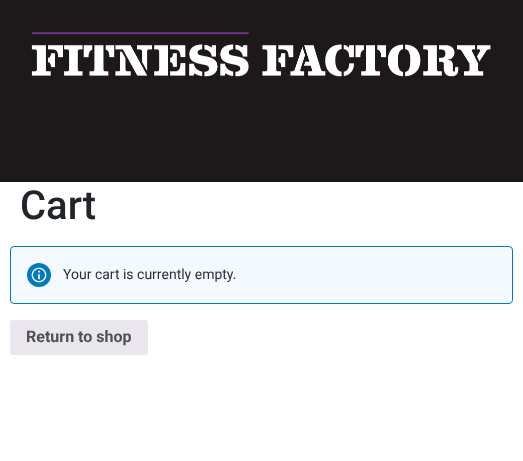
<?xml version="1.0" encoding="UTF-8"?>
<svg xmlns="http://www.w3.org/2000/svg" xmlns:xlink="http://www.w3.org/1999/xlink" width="523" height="461">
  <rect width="100%" height="100%" fill="#ffffff" />
  <rect width="523" height="182" fill="#1d1819" />
  <image x="31" y="32" width="460" height="45" xlink:href="image1.png" />
  <rect x="10.5" y="246.5" width="502" height="57" rx="3.5" fill="#f4f8ff" stroke="#007cba" />
  <circle cx="39" cy="275" r="12" fill="#007cba" />
  <image x="31" y="267" width="16" height="16" xlink:href="image2.png" />
  <rect x="10" y="320" width="138" height="35" rx="3" fill="#e9e6ed" />
  <text x="20" y="219" style="font-family: Roboto; font-size: 40px; font-weight: 500; fill: #212529">Cart</text>
  <text x="63" y="279" style="font-family: Roboto; font-size: 14px; fill: #2f2f2f">Your cart is currently empty.</text>
  <text x="26" y="342" style="font-family: Roboto; font-size: 16px; font-weight: bold; fill: #515151">Return to shop</text>
</svg>
